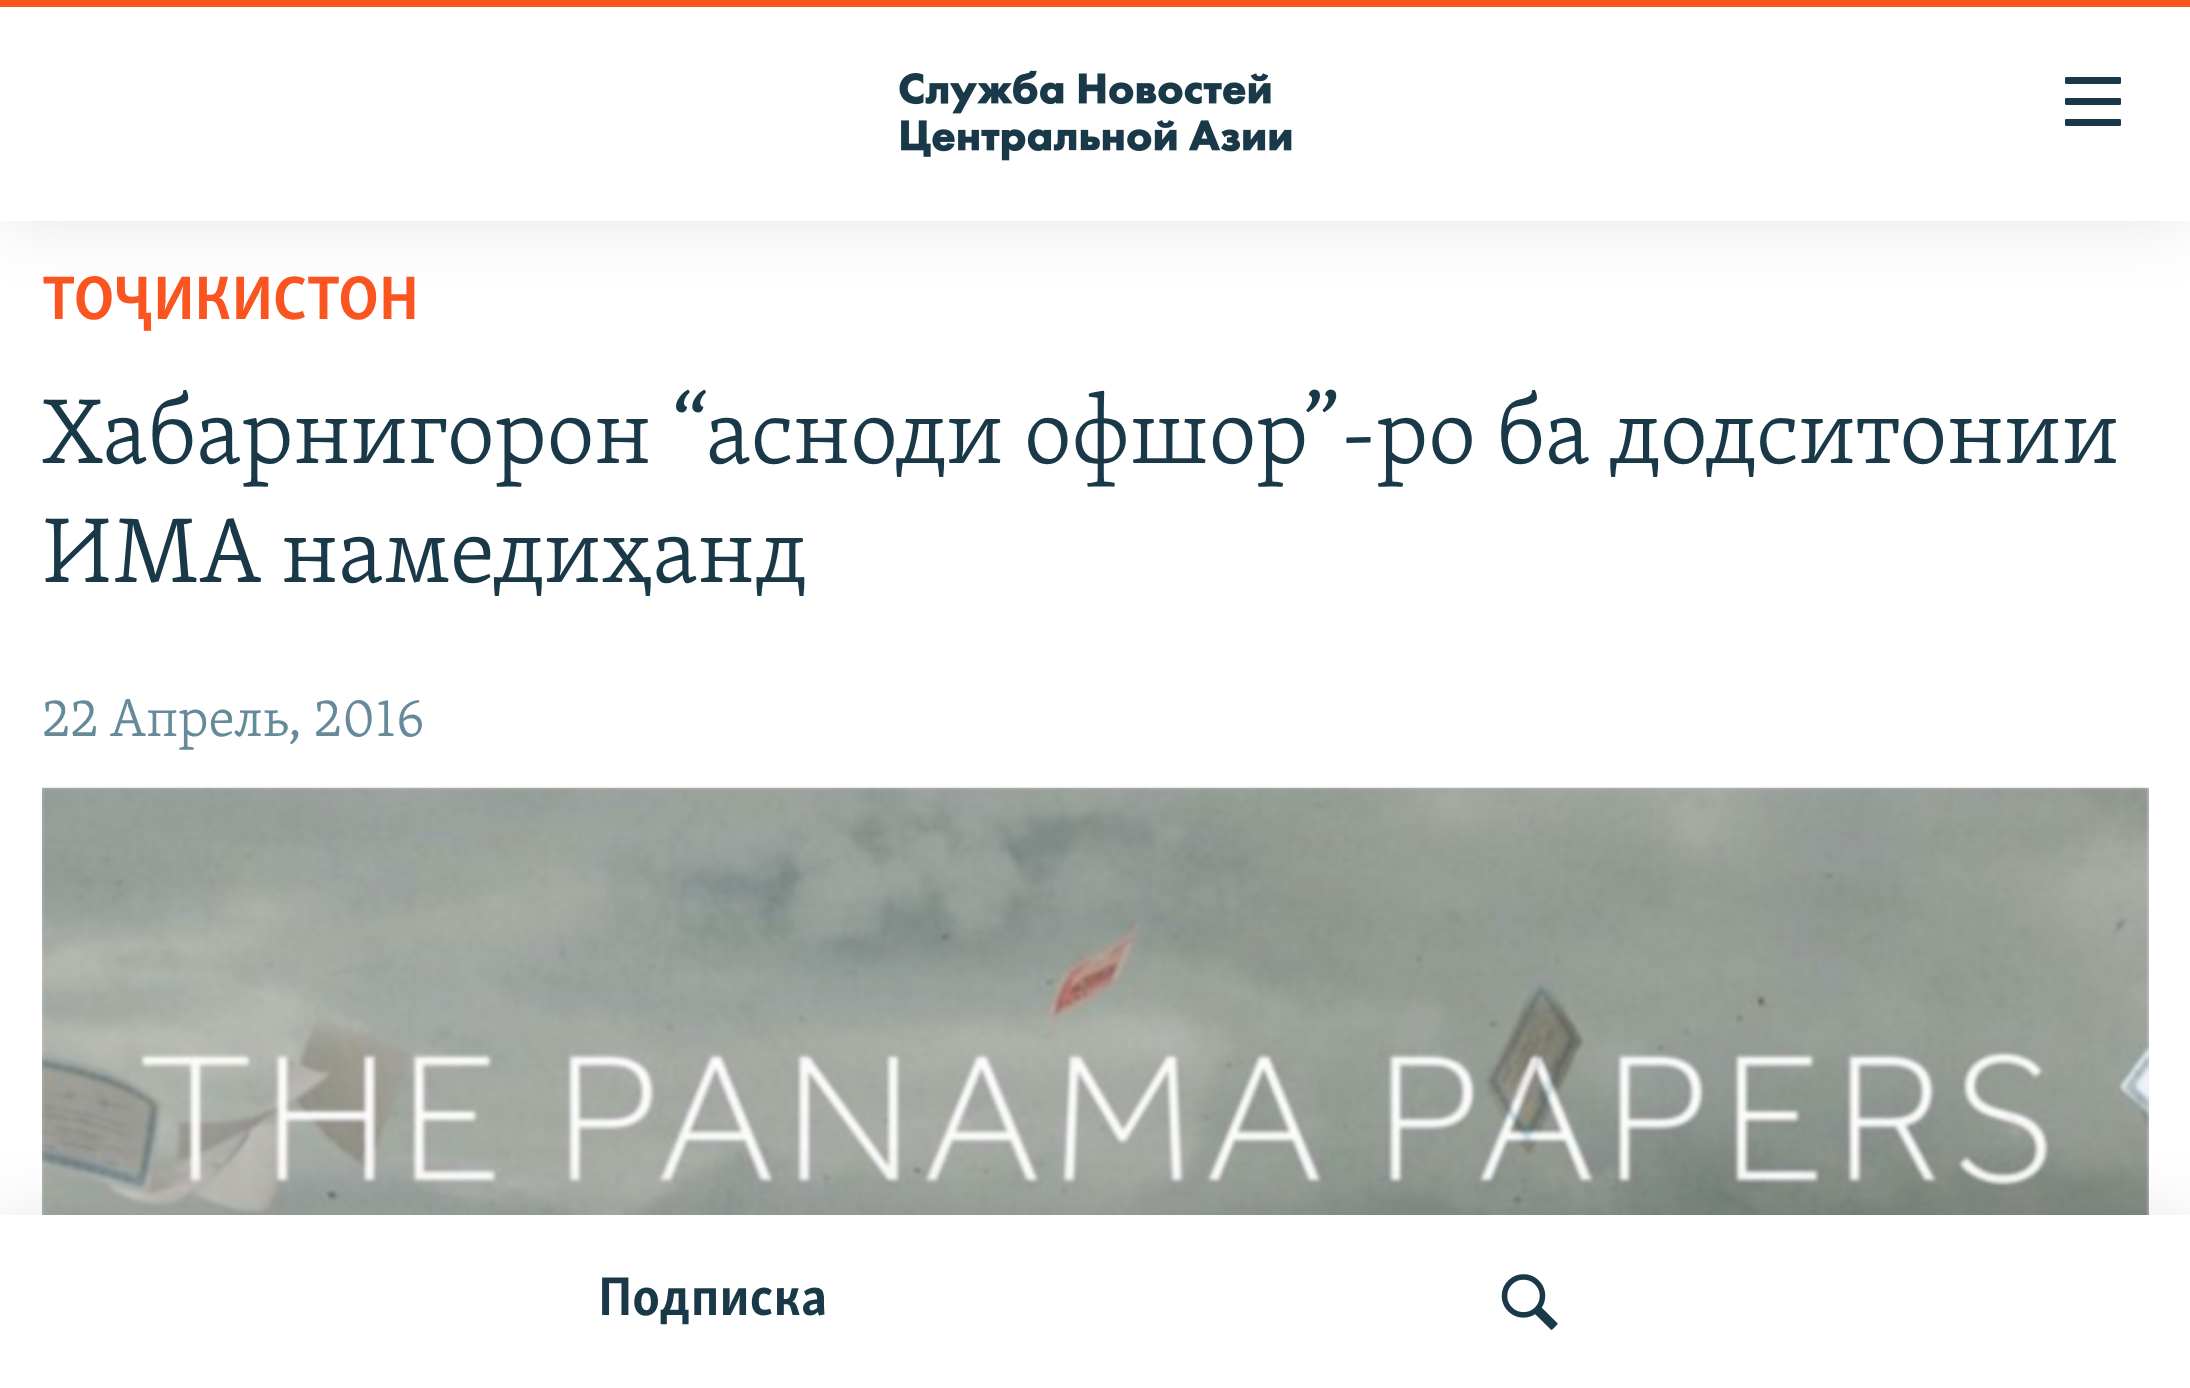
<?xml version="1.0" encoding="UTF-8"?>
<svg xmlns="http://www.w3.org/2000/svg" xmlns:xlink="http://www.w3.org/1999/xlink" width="2190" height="1388">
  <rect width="100%" height="100%" fill="#ffffff" />
  <rect x="42" y="788" width="2107" height="427" fill="#edeff0" />
  <image x="42" y="787" width="2107" height="428" xlink:href="image1.png" />
  <rect width="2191" height="221" fill="#000000" fill-opacity="0.1" filter="blur(35px)" />
  <rect y="7" width="2190" height="214" fill="#ffffff" />
  <rect width="2190" height="7" fill="#fa5420" />
  <image x="899" y="70" width="393" height="91" xlink:href="image2.png" />
  <image x="2065" y="77" width="56" height="49" xlink:href="image3.png" />
  <rect y="1215" width="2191" height="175" fill="#000000" fill-opacity="0.1" filter="blur(35px)" />
  <rect y="1215" width="2190" height="173" fill="#ffffff" />
  <image x="1501" y="1274" width="57" height="56" xlink:href="image4.png" />
  <text x="42" y="319" style="font-family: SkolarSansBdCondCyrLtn; font-size: 63px; font-weight: bold; fill: #fa5420">ТОҶИКИСТОН</text>
  <text x="42" y="463" style="font-family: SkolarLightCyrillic; font-size: 94.5px; font-weight: 300; fill: #1a3948">Хабарнигорон “асноди офшор”-ро ба додситонии</text>
  <text x="42" y="582" style="font-family: SkolarLightCyrillic; font-size: 94.5px; font-weight: 300; fill: #1a3948">ИМА намедиҳанд</text>
  <text x="42" y="736" style="font-family: SkolarLightCyrillic; font-size: 55px; font-weight: 300; fill: #678a9b">22 Апрель, 2016</text>
  <text x="598" y="1315" style="font-family: SkolarSansBdCondCyrLtn; font-size: 56px; font-weight: bold; fill: #1a3948">Подписка</text>
</svg>
